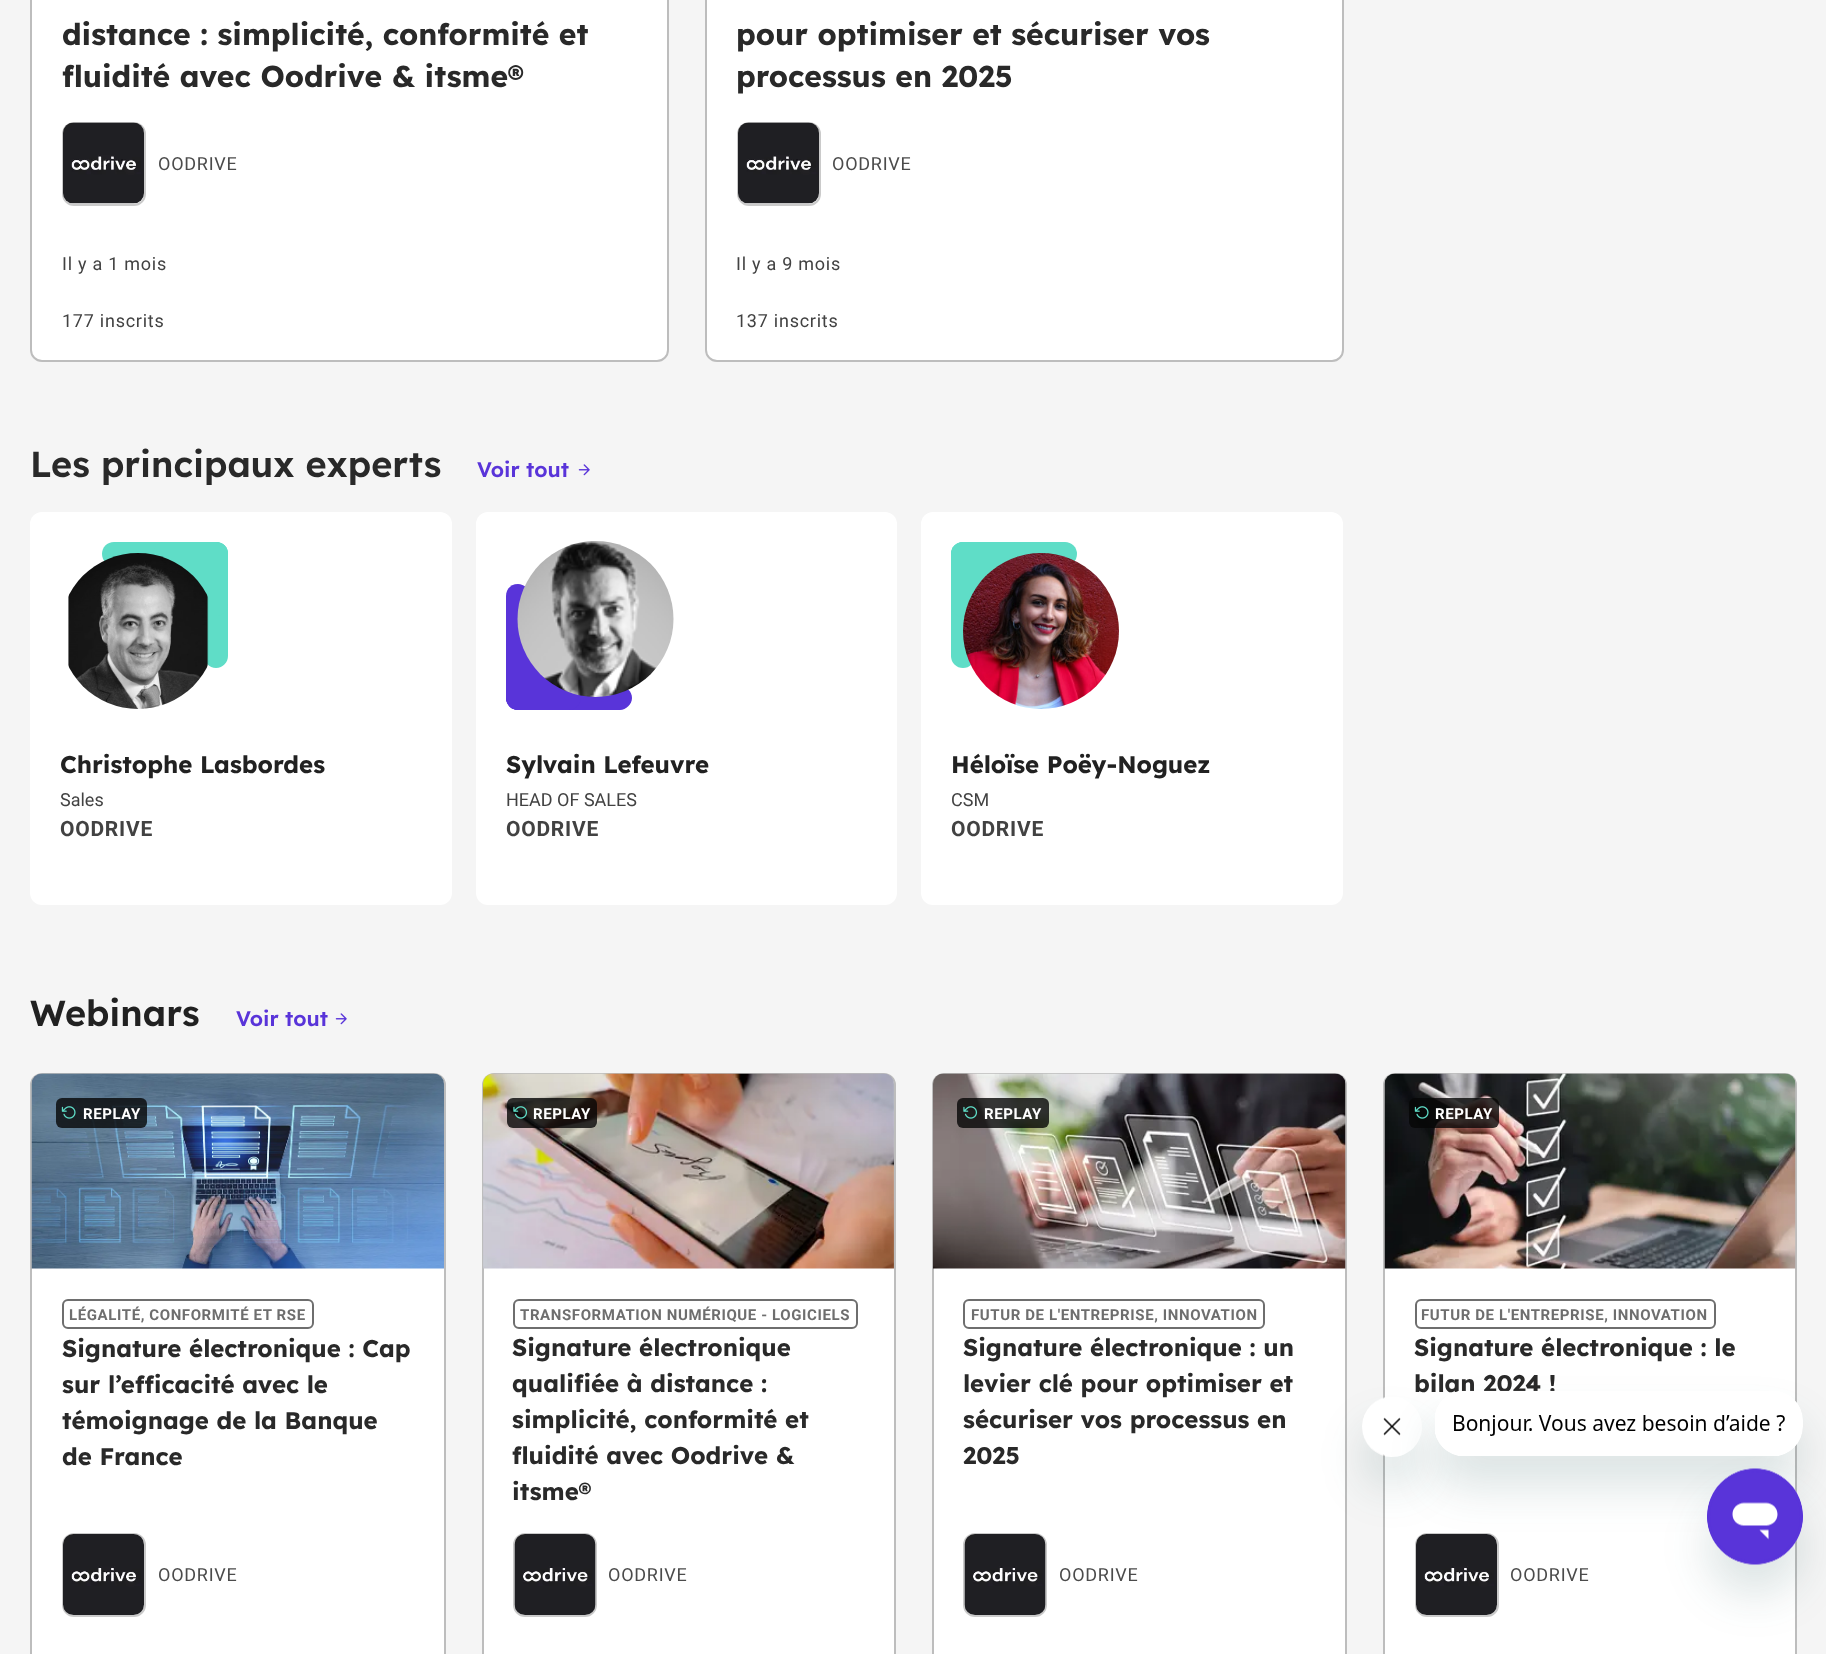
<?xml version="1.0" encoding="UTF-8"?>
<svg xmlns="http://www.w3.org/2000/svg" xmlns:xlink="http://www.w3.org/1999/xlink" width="1826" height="1654">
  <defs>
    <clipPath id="clip1"><path d="M 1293 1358 h 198 v 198 h -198 z m 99 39 c 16.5 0 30 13.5 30 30 c 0 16.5 -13.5 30 -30 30 c -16.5 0 -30 -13.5 -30 -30 c 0 -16.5 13.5 -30 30 -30 z" clip-rule="evenodd" /></clipPath>
  </defs>
  <rect width="100%" height="100%" fill="#f5f5f5" />
  <rect x="31" y="-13" width="637" height="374" rx="11" fill="#ffffff" stroke="#bdbdbd" stroke-width="2" />
  <rect x="63" y="123" width="82" height="82" rx="11" fill="none" stroke="#cacaca" stroke-width="2" />
  <image x="63" y="122" width="81" height="82" xlink:href="image1.png" />
  <rect x="706" y="-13" width="637" height="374" rx="11" fill="#ffffff" stroke="#bdbdbd" stroke-width="2" />
  <rect x="738" y="123" width="82" height="82" rx="11" fill="none" stroke="#cacaca" stroke-width="2" />
  <image x="738" y="122" width="81" height="82" xlink:href="image2.png" />
  <image x="578" y="464" width="12" height="12" xlink:href="image3.png" />
  <rect x="30" y="512" width="422" height="393" rx="12" fill="#ffffff" />
  <path d="M 228 554 c 0 6 -5 12 -12 12 h -102 c -7 0 -12 -6 -12 -12 c 0 -7 5 -12 12 -12 h 102 c 7 0 12 5 12 12 z" fill="#5fddc7" />
  <path d="M 228 554 v 102 c 0 6 -5 12 -12 12 c -7 0 -12 -6 -12 -12 v -102 c 0 -7 5 -12 12 -12 c 7 0 12 5 12 12 z" fill="#5fddc7" />
  <path d="M 228 554 v 50 c 0 7 -5 12 -12 12 h -51 c -7 0 -12 -5 -12 -12 v -50 c 0 -7 5 -12 12 -12 h 51 c 7 0 12 5 12 12 z" fill="#5fddc7" />
  <image x="68" y="553" width="141" height="156" xlink:href="image4.png" />
  <rect x="476" y="512" width="421" height="393" rx="12" fill="#ffffff" />
  <path d="M 506 698 c 0 -7 5 -12 12 -12 h 102 c 6 0 12 5 12 12 c 0 6 -6 12 -12 12 h -102 c -7 0 -12 -6 -12 -12 z" fill="#5934d9" />
  <path d="M 506 698 v -102 c 0 -7 5 -12 12 -12 c 6 0 12 5 12 12 v 102 c 0 6 -6 12 -12 12 c -7 0 -12 -6 -12 -12 z" fill="#5934d9" />
  <path d="M 506 698 v -52 c 0 -6 5 -12 12 -12 h 51 c 6 0 12 6 12 12 v 52 c 0 6 -6 12 -12 12 h -51 c -7 0 -12 -6 -12 -12 z" fill="#5934d9" />
  <image x="517" y="541" width="157" height="156" xlink:href="image5.png" />
  <rect x="921" y="512" width="422" height="393" rx="12" fill="#ffffff" />
  <rect x="951" y="542" width="24" height="126" rx="12" fill="#5fddc7" />
  <rect x="951" y="542" width="126" height="24" rx="12" fill="#5fddc7" />
  <rect x="951" y="542" width="75" height="75" rx="12" fill="#5fddc7" />
  <image x="963" y="553" width="156" height="156" xlink:href="image6.png" />
  <image x="335" y="1013" width="12" height="12" xlink:href="image3.png" />
  <rect x="31" y="1074" width="414" height="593" rx="11" fill="#ffffff" stroke="#bdbdbd" stroke-width="2" />
  <image x="31" y="1073" width="413" height="196" xlink:href="image7.png" />
  <rect x="56" y="1098" width="91" height="30" rx="6" fill="#060606" fill-opacity="0.8" />
  <image x="61" y="1106" width="15" height="13" xlink:href="image8.png" />
  <rect x="63" y="1300" width="250" height="28" rx="5" fill="none" stroke="#6e6e6e" stroke-width="2" />
  <rect x="63" y="1534" width="82" height="82" rx="11" fill="none" stroke="#cacaca" stroke-width="2" />
  <image x="63" y="1534" width="81" height="81" xlink:href="image9.png" />
  <rect x="483" y="1074" width="412" height="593" rx="11" fill="#ffffff" stroke="#bdbdbd" stroke-width="2" />
  <image x="483" y="1073" width="411" height="196" xlink:href="image10.png" />
  <rect x="507" y="1098" width="90" height="30" rx="6" fill="#060606" fill-opacity="0.8" />
  <image x="513" y="1106" width="15" height="13" xlink:href="image11.png" />
  <rect x="514" y="1300" width="343" height="28" rx="5" fill="none" stroke="#6e6e6e" stroke-width="2" />
  <rect x="514" y="1534" width="82" height="82" rx="11" fill="none" stroke="#cacaca" stroke-width="2" />
  <image x="514" y="1534" width="82" height="81" xlink:href="image12.png" />
  <rect x="933" y="1074" width="413" height="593" rx="11" fill="#ffffff" stroke="#bdbdbd" stroke-width="2" />
  <image x="933" y="1073" width="413" height="196" xlink:href="image13.png" />
  <rect x="957" y="1098" width="92" height="30" rx="6" fill="#060606" fill-opacity="0.8" />
  <image x="963" y="1106" width="15" height="13" xlink:href="image14.png" />
  <rect x="964" y="1300" width="300" height="28" rx="5" fill="none" stroke="#6e6e6e" stroke-width="2" />
  <rect x="964" y="1534" width="82" height="82" rx="11" fill="none" stroke="#cacaca" stroke-width="2" />
  <image x="964" y="1534" width="82" height="81" xlink:href="image12.png" />
  <rect x="1384" y="1074" width="412" height="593" rx="11" fill="#ffffff" stroke="#bdbdbd" stroke-width="2" />
  <image x="1384" y="1073" width="412" height="196" xlink:href="image15.png" />
  <rect x="1409" y="1098" width="90" height="30" rx="6" fill="#060606" fill-opacity="0.8" />
  <image x="1414" y="1106" width="15" height="13" xlink:href="image16.png" />
  <rect x="1416" y="1300" width="299" height="28" rx="5" fill="none" stroke="#6e6e6e" stroke-width="2" />
  <rect x="1416" y="1534" width="82" height="82" rx="11" fill="none" stroke="#cacaca" stroke-width="2" />
  <image x="1416" y="1534" width="81" height="81" xlink:href="image17.png" />
  <g clip-path="url(#clip1)">
    <rect x="1362" y="1427" width="60" height="60" rx="30" fill="#17494d" fill-opacity="0.15" filter="blur(22.5px)" />
  </g>
  <image x="1362" y="1397" width="41" height="60" xlink:href="image19.png" />
  <rect x="1434" y="1421" width="369" height="66" rx="30" fill="#17494d" fill-opacity="0.15" filter="blur(22.5px)" />
  <text x="62" y="45" style="font-family: Lexend; font-size: 30px; font-weight: bold; fill: #292929">distance : simplicité, conformité et</text>
  <text x="62" y="87" style="font-family: Lexend; font-size: 30px; font-weight: bold; fill: #292929">fluidité avec Oodrive &amp; itsme®</text>
  <text x="158" y="170" style="font-family: Roboto; font-size: 18px; letter-spacing: 0.75px; fill: #4b4b4b">OODRIVE</text>
  <text x="62" y="270" style="font-family: Roboto; font-size: 18px; letter-spacing: 0.75px; fill: #424242">Il y a 1 mois</text>
  <text x="62" y="327" style="font-family: Roboto; font-size: 18px; letter-spacing: 0.75px; fill: #424242">177 inscrits</text>
  <text x="736" y="45" style="font-family: Lexend; font-size: 30px; font-weight: bold; fill: #292929">pour optimiser et sécuriser vos</text>
  <text x="736" y="87" style="font-family: Lexend; font-size: 30px; font-weight: bold; fill: #292929">processus en 2025</text>
  <text x="832" y="170" style="font-family: Roboto; font-size: 18px; letter-spacing: 0.75px; fill: #4b4b4b">OODRIVE</text>
  <text x="736" y="270" style="font-family: Roboto; font-size: 18px; letter-spacing: 0.75px; fill: #424242">Il y a 9 mois</text>
  <text x="736" y="327" style="font-family: Roboto; font-size: 18px; letter-spacing: 0.75px; fill: #424242">137 inscrits</text>
  <text x="30" y="477" style="font-family: Lexend; font-size: 36px; font-weight: 600; fill: #292929">Les principaux experts</text>
  <text x="477" y="477" style="font-family: Lexend; font-size: 21px; font-weight: 600; fill: #5934d9">Voir tout</text>
  <text x="60" y="773" style="font-family: Lexend; font-size: 24px; font-weight: bold; fill: #212121">Christophe Lasbordes</text>
  <text x="60" y="806" style="font-family: Roboto; font-size: 18px; fill: #424242">Sales</text>
  <text x="60" y="836" style="font-family: Roboto; font-size: 21px; font-weight: bold; letter-spacing: 0.75px; fill: #424242">OODRIVE</text>
  <text x="506" y="773" style="font-family: Lexend; font-size: 24px; font-weight: bold; fill: #212121">Sylvain Lefeuvre</text>
  <text x="506" y="806" style="font-family: Roboto; font-size: 18px; fill: #424242">HEAD OF SALES</text>
  <text x="506" y="836" style="font-family: Roboto; font-size: 21px; font-weight: bold; letter-spacing: 0.75px; fill: #424242">OODRIVE</text>
  <text x="951" y="773" style="font-family: Lexend; font-size: 24px; font-weight: bold; fill: #212121">Héloïse Poëy-Noguez</text>
  <text x="951" y="806" style="font-family: Roboto; font-size: 18px; fill: #424242">CSM</text>
  <text x="951" y="836" style="font-family: Roboto; font-size: 21px; font-weight: bold; letter-spacing: 0.75px; fill: #424242">OODRIVE</text>
  <text x="30" y="1026" style="font-family: Lexend; font-size: 36px; font-weight: 600; fill: #212121">Webinars</text>
  <text x="236" y="1026" style="font-family: Lexend; font-size: 21px; font-weight: 600; fill: #5934d9">Voir tout</text>
  <text x="83" y="1119" style="font-family: Roboto; font-size: 15px; font-weight: bold; letter-spacing: 0.6px; fill: #ffffff">REPLAY</text>
  <text x="69" y="1320" style="font-family: Roboto; font-size: 15px; font-weight: bold; letter-spacing: 0.6px; fill: #6e6e6e">LÉGALITÉ, CONFORMITÉ ET RSE</text>
  <text x="62" y="1357" style="font-family: Lexend; font-size: 24px; font-weight: bold; fill: #292929">Signature électronique : Cap</text>
  <text x="62" y="1393" style="font-family: Lexend; font-size: 24px; font-weight: bold; fill: #292929">sur l’efficacité avec le</text>
  <text x="62" y="1429" style="font-family: Lexend; font-size: 24px; font-weight: bold; fill: #292929">témoignage de la Banque</text>
  <text x="62" y="1465" style="font-family: Lexend; font-size: 24px; font-weight: bold; fill: #292929">de France</text>
  <text x="158" y="1581" style="font-family: Roboto; font-size: 18px; letter-spacing: 0.75px; fill: #4b4b4b">OODRIVE</text>
  <text x="533" y="1119" style="font-family: Roboto; font-size: 15px; font-weight: bold; letter-spacing: 0.6px; fill: #ffffff">REPLAY</text>
  <text x="520" y="1320" style="font-family: Roboto; font-size: 15px; font-weight: bold; letter-spacing: 0.6px; fill: #6e6e6e">TRANSFORMATION NUMÉRIQUE - LOGICIELS</text>
  <text x="512" y="1356" style="font-family: Lexend; font-size: 24px; font-weight: bold; fill: #292929">Signature électronique</text>
  <text x="512" y="1392" style="font-family: Lexend; font-size: 24px; font-weight: bold; fill: #292929">qualifiée à distance :</text>
  <text x="512" y="1428" style="font-family: Lexend; font-size: 24px; font-weight: bold; fill: #292929">simplicité, conformité et</text>
  <text x="512" y="1464" style="font-family: Lexend; font-size: 24px; font-weight: bold; fill: #292929">fluidité avec Oodrive &amp;</text>
  <text x="512" y="1500" style="font-family: Lexend; font-size: 24px; font-weight: bold; fill: #292929">itsme®</text>
  <text x="608" y="1581" style="font-family: Roboto; font-size: 18px; letter-spacing: 0.75px; fill: #4b4b4b">OODRIVE</text>
  <text x="984" y="1119" style="font-family: Roboto; font-size: 15px; font-weight: bold; letter-spacing: 0.6px; fill: #ffffff">REPLAY</text>
  <text x="971" y="1320" style="font-family: Roboto; font-size: 15px; font-weight: bold; letter-spacing: 0.6px; fill: #6e6e6e">FUTUR DE L'ENTREPRISE, INNOVATION</text>
  <text x="963" y="1356" style="font-family: Lexend; font-size: 24px; font-weight: bold; fill: #292929">Signature électronique : un</text>
  <text x="963" y="1392" style="font-family: Lexend; font-size: 24px; font-weight: bold; fill: #292929">levier clé pour optimiser et</text>
  <text x="963" y="1428" style="font-family: Lexend; font-size: 24px; font-weight: bold; fill: #292929">sécuriser vos processus en</text>
  <text x="963" y="1464" style="font-family: Lexend; font-size: 24px; font-weight: bold; fill: #292929">2025</text>
  <text x="1059" y="1581" style="font-family: Roboto; font-size: 18px; letter-spacing: 0.75px; fill: #4b4b4b">OODRIVE</text>
  <text x="1435" y="1119" style="font-family: Roboto; font-size: 15px; font-weight: bold; letter-spacing: 0.6px; fill: #ffffff">REPLAY</text>
  <text x="1421" y="1320" style="font-family: Roboto; font-size: 15px; font-weight: bold; letter-spacing: 0.6px; fill: #6e6e6e">FUTUR DE L'ENTREPRISE, INNOVATION</text>
  <text x="1414" y="1356" style="font-family: Lexend; font-size: 24px; font-weight: bold; fill: #292929">Signature électronique : le</text>
  <text x="1414" y="1392" style="font-family: Lexend; font-size: 24px; font-weight: bold; fill: #292929">bilan 2024 !</text>
  <text x="1510" y="1581" style="font-family: Roboto; font-size: 18px; letter-spacing: 0.75px; fill: #4b4b4b">OODRIVE</text>
  <image x="1435" y="1390" width="368" height="66" xlink:href="image18.png" />
  <rect x="1707" y="1499" width="96" height="96" rx="48" fill="#17494d" fill-opacity="0.15" filter="blur(22.5px)" />
  <image x="1707" y="1468" width="96" height="97" xlink:href="image20.png" />
</svg>
